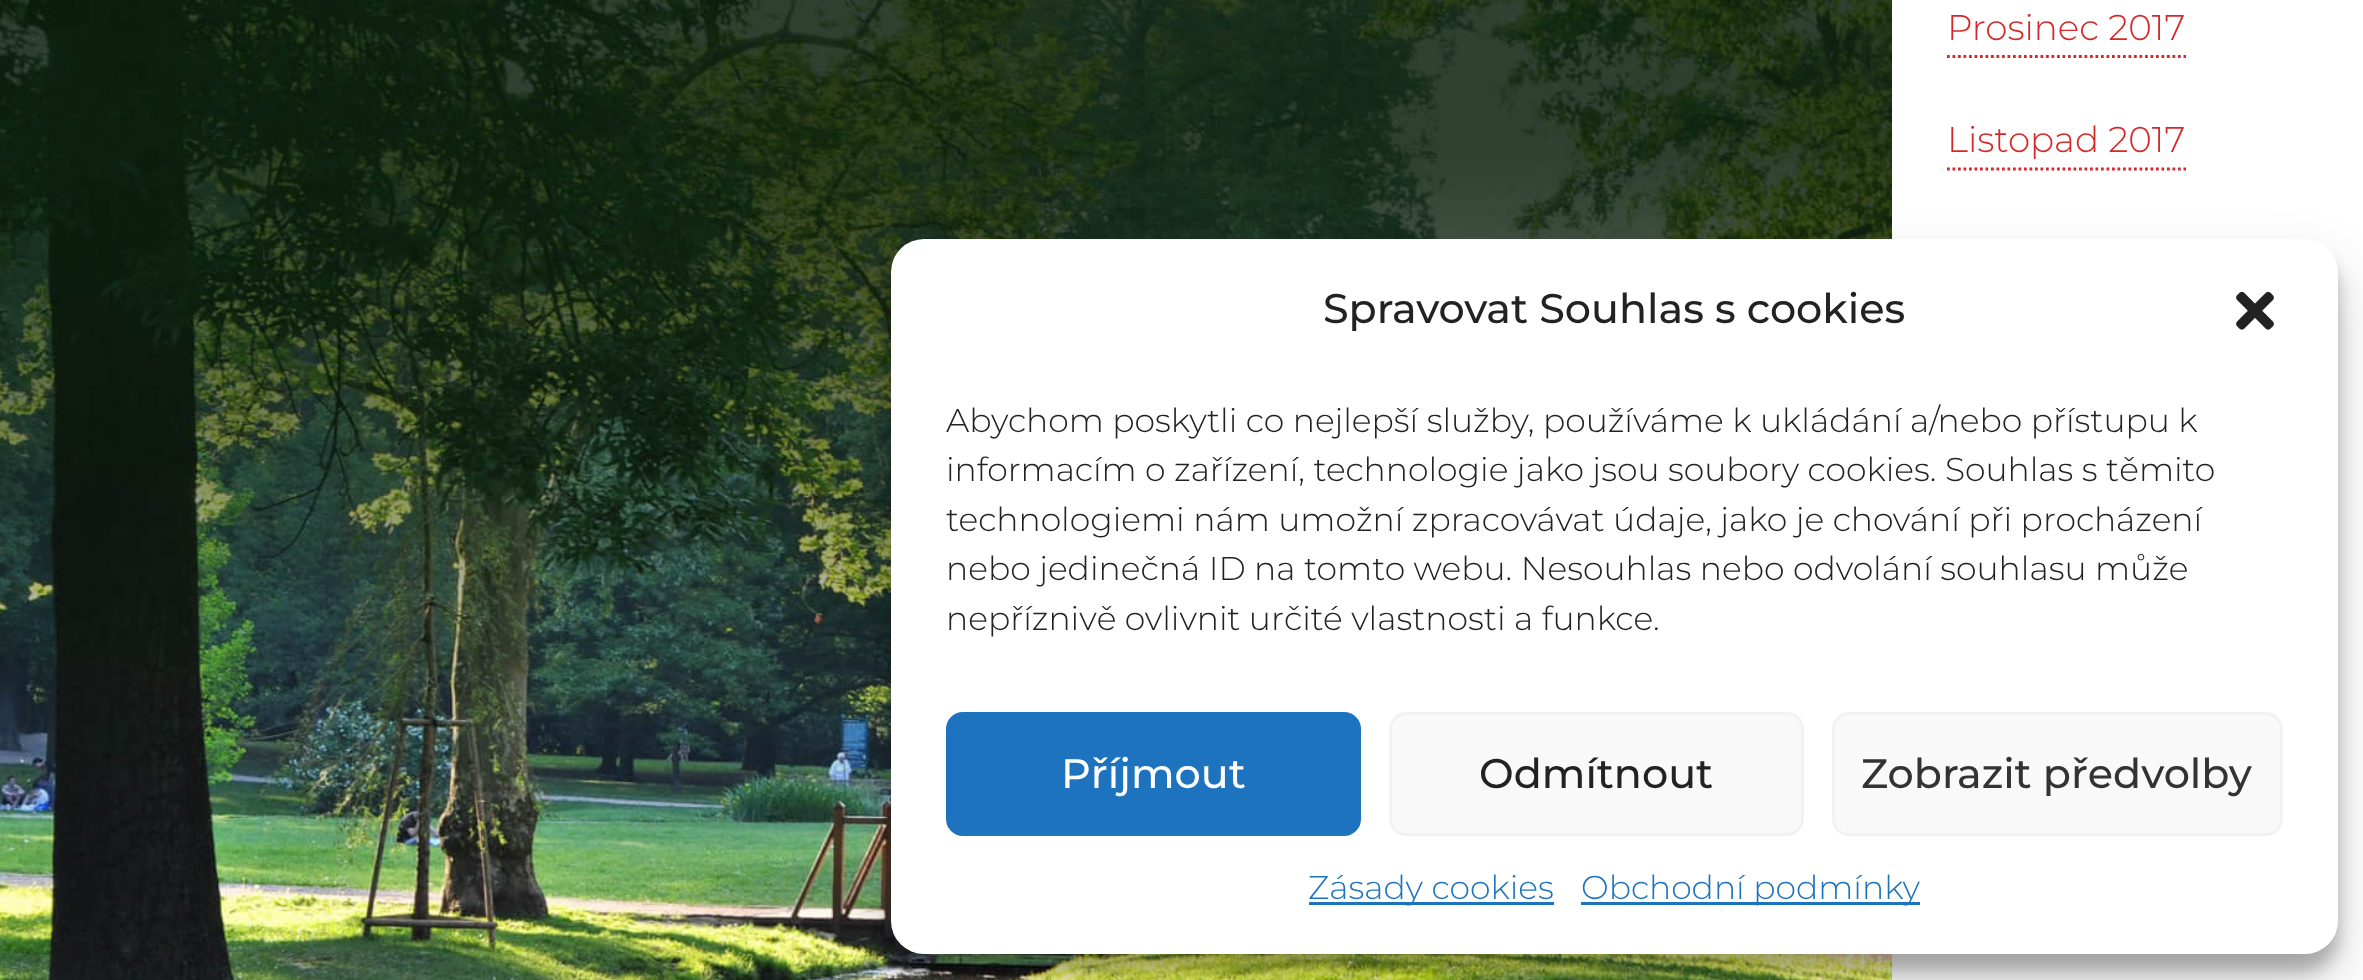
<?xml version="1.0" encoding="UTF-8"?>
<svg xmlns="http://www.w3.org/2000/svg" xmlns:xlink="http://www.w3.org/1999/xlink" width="2363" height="980">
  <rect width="100%" height="100%" fill="#ffffff" />
  <image x="0" y="0" width="1892" height="980" xlink:href="image1.png" />
  <path d="M 1947 56.5 h 239" fill="none" stroke="#d62828" stroke-width="2.8" stroke-dasharray="2.75 2.75" />
  <path d="M 1947 169 h 239" fill="none" stroke="#d62828" stroke-width="2.8" stroke-dasharray="2.75 2.75" />
  <rect x="891" y="256" width="1447" height="715" rx="33" fill="#000000" fill-opacity="0.23" filter="blur(8px)" />
  <rect x="891" y="267" width="1447" height="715" rx="33" fill="#000000" fill-opacity="0.19" filter="blur(27.5px)" />
  <rect x="891" y="239" width="1447" height="715" rx="33" fill="#ffffff" />
  <image x="2236" y="291" width="38" height="39" xlink:href="image2.png" />
  <rect x="947.5" y="713.5" width="412" height="121" rx="15.5" fill="#1e73be" stroke="#1e73be" stroke-width="3" />
  <rect x="1390.5" y="713.5" width="412" height="121" rx="15.5" fill="#f9f9f9" stroke="#f2f2f2" stroke-width="3" />
  <rect x="1833.5" y="713.5" width="448" height="121" rx="15.5" fill="#f9f9f9" stroke="#f2f2f2" stroke-width="3" />
  <rect x="1309" y="902" width="245" height="3" fill="#1e73be" />
  <rect x="1581" y="902" width="339" height="3" fill="#1e73be" />
  <text x="1947" y="40" style="font-family: Montserrat; font-size: 35.75px; font-weight: 300; fill: #d62828">Prosinec 2017</text>
  <text x="1947" y="152" style="font-family: Montserrat; font-size: 35.75px; font-weight: 300; fill: #d62828">Listopad 2017</text>
  <text x="1323" y="323" style="font-family: Montserrat; font-size: 41.25px; font-weight: 500; fill: #222222">Spravovat Souhlas s cookies</text>
  <text x="946" y="432" style="font-family: Montserrat; font-size: 33px; font-weight: 300; fill: #222222">Abychom poskytli co nejlepší služby, používáme k ukládání a/nebo přístupu k</text>
  <text x="946" y="481" style="font-family: Montserrat; font-size: 33px; font-weight: 300; fill: #222222">informacím o zařízení, technologie jako jsou soubory cookies. Souhlas s těmito</text>
  <text x="946" y="531" style="font-family: Montserrat; font-size: 33px; font-weight: 300; fill: #222222">technologiemi nám umožní zpracovávat údaje, jako je chování při procházení</text>
  <text x="946" y="580" style="font-family: Montserrat; font-size: 33px; font-weight: 300; fill: #222222">nebo jedinečná ID na tomto webu. Nesouhlas nebo odvolání souhlasu může</text>
  <text x="946" y="630" style="font-family: Montserrat; font-size: 33px; font-weight: 300; fill: #222222">nepříznivě ovlivnit určité vlastnosti a funkce.</text>
  <text x="1061" y="788" style="font-family: Montserrat; font-size: 41.25px; font-weight: 500; fill: #ffffff">Příjmout</text>
  <text x="1479" y="788" style="font-family: Montserrat; font-size: 41.25px; font-weight: 500; fill: #222222">Odmítnout</text>
  <text x="1861" y="788" style="font-family: Montserrat; font-size: 41.25px; font-weight: 500; fill: #333333">Zobrazit předvolby</text>
  <text x="1308" y="899" style="font-family: Montserrat; font-size: 33px; font-weight: 300; fill: #1e73be">Zásady cookies</text>
  <text x="1581" y="899" style="font-family: Montserrat; font-size: 33px; font-weight: 300; fill: #1e73be">Obchodní podmínky</text>
</svg>
